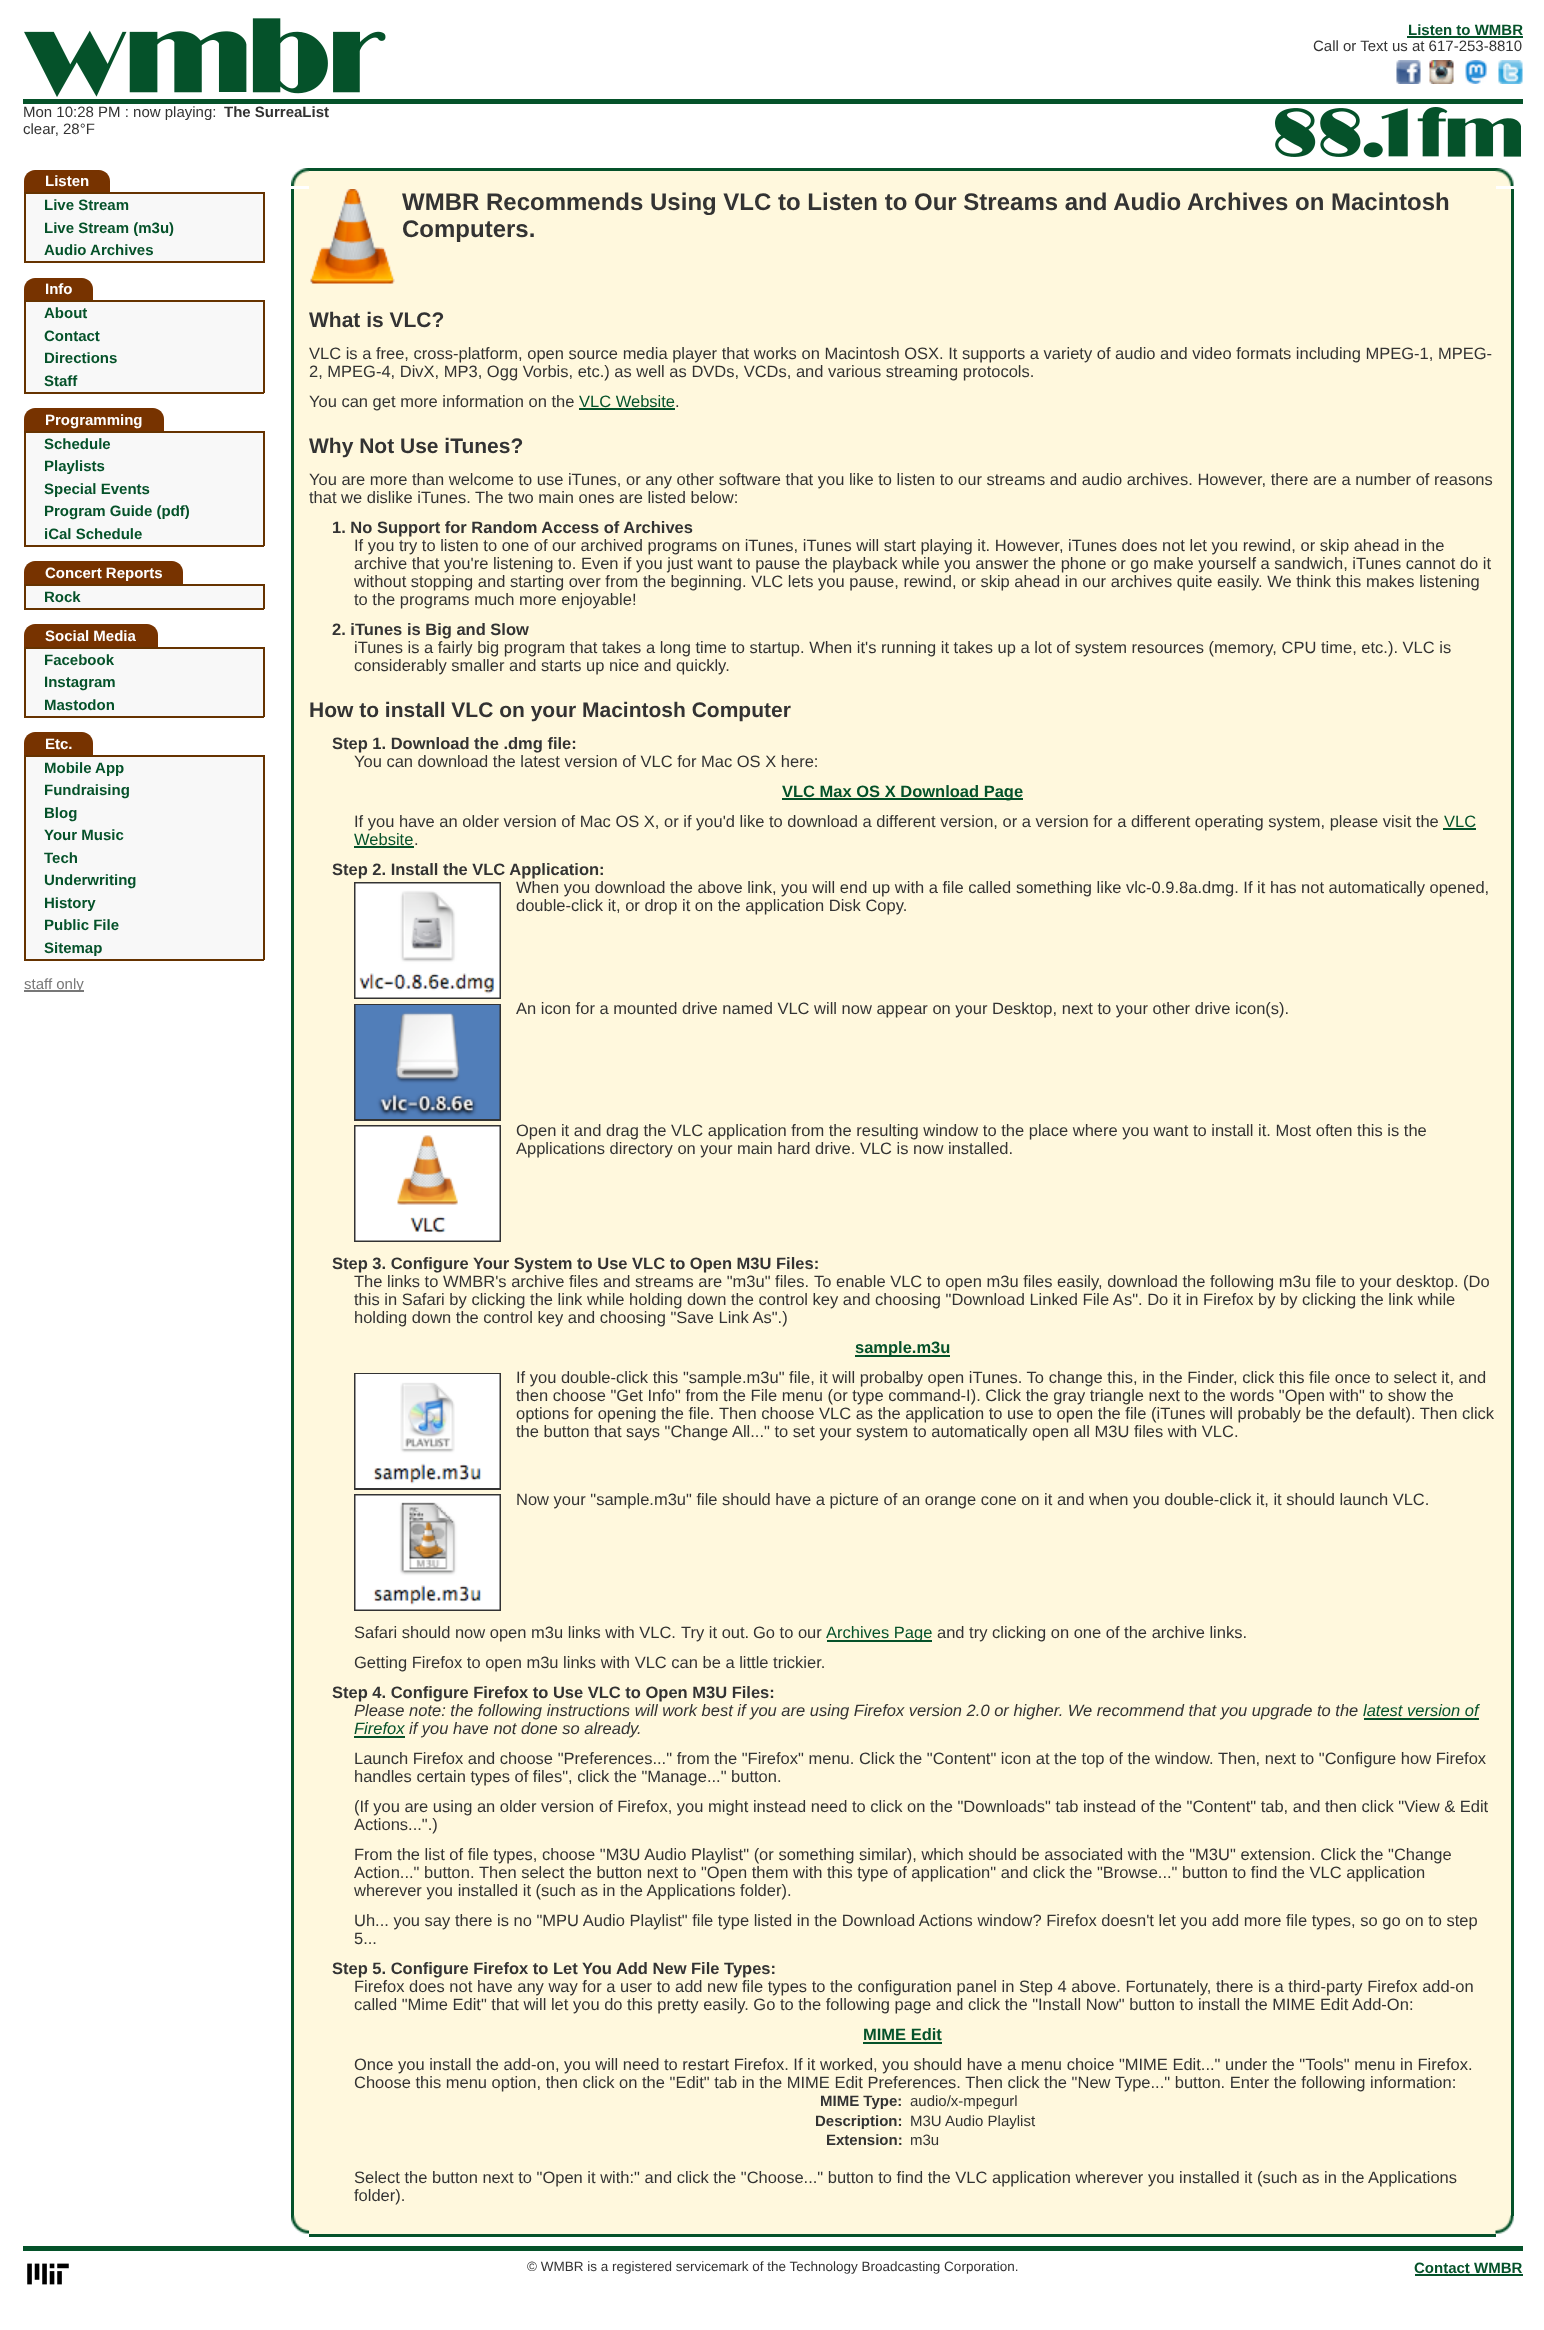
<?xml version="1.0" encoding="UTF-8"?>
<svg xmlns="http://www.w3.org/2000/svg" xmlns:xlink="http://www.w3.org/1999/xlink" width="1544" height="2330">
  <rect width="100%" height="100%" fill="#ffffff" />
  <image x="24" y="18" width="362" height="79" xlink:href="image1.png" />
  <rect x="1407" y="36" width="116" height="2" fill="#05522a" />
  <image x="1396" y="60" width="25" height="24" xlink:href="image2.png" />
  <image x="1429" y="60" width="25" height="24" xlink:href="image3.png" />
  <image x="1465" y="60" width="23" height="24" xlink:href="image4.png" />
  <image x="1498" y="60" width="25" height="24" xlink:href="image5.png" />
  <rect x="23" y="99" width="1500" height="5" fill="#05522a" />
  <image x="1275" y="107" width="246" height="51" xlink:href="image6.png" />
  <path d="M 35 170 h 64 c 6 0 11 5 11 11 v 11 h -86 v -11 c 0 -6 5 -11 11 -11 z" fill="#773300" />
  <rect x="24" y="192" width="240" height="2" fill="#663300" />
  <rect x="263" y="192" width="2" height="71" fill="#663300" />
  <rect x="24" y="261" width="240" height="2" fill="#663300" />
  <rect x="24" y="192" width="2" height="71" fill="#663300" />
  <rect x="26" y="194" width="237" height="67" fill="#f8f8f8" />
  <path d="M 35 278 h 47 c 6 0 11 5 11 11 v 11 h -69 v -11 c 0 -6 5 -11 11 -11 z" fill="#773300" />
  <rect x="24" y="300" width="240" height="2" fill="#663300" />
  <rect x="263" y="300" width="2" height="93" fill="#663300" />
  <rect x="24" y="392" width="240" height="2" fill="#663300" />
  <rect x="24" y="300" width="2" height="93" fill="#663300" />
  <rect x="26" y="302" width="237" height="90" fill="#f8f8f8" />
  <path d="M 35 408 h 118 c 6 0 11 5 11 11 v 12 h -140 v -12 c 0 -6 5 -11 11 -11 z" fill="#773300" />
  <rect x="24" y="431" width="240" height="2" fill="#663300" />
  <rect x="263" y="431" width="2" height="115" fill="#663300" />
  <rect x="24" y="545" width="240" height="2" fill="#663300" />
  <rect x="24" y="431" width="2" height="115" fill="#663300" />
  <rect x="26" y="433" width="237" height="112" fill="#f8f8f8" />
  <path d="M 35 561 h 137 c 6 0 11 5 11 11 v 12 h -159 v -12 c 0 -6 5 -11 11 -11 z" fill="#773300" />
  <rect x="24" y="584" width="240" height="2" fill="#663300" />
  <rect x="263" y="584" width="2" height="25" fill="#663300" />
  <rect x="24" y="608" width="240" height="2" fill="#663300" />
  <rect x="24" y="584" width="2" height="25" fill="#663300" />
  <rect x="26" y="586" width="237" height="22" fill="#f8f8f8" />
  <path d="M 35 624 h 112 c 6 0 11 5 11 11 v 12 h -134 v -12 c 0 -6 5 -11 11 -11 z" fill="#773300" />
  <rect x="24" y="647" width="240" height="2" fill="#663300" />
  <rect x="263" y="647" width="2" height="70" fill="#663300" />
  <rect x="24" y="716" width="240" height="2" fill="#663300" />
  <rect x="24" y="647" width="2" height="70" fill="#663300" />
  <rect x="26" y="649" width="237" height="67" fill="#f8f8f8" />
  <path d="M 35 732 h 47 c 6 0 11 5 11 11 v 12 h -69 v -12 c 0 -6 5 -11 11 -11 z" fill="#773300" />
  <rect x="24" y="755" width="240" height="2" fill="#663300" />
  <rect x="263" y="755" width="2" height="205" fill="#663300" />
  <rect x="24" y="959" width="240" height="2" fill="#663300" />
  <rect x="24" y="755" width="2" height="205" fill="#663300" />
  <rect x="26" y="757" width="237" height="202" fill="#f8f8f8" />
  <rect x="24" y="990" width="60" height="2" fill="#777777" />
  <image x="291" y="168" width="18" height="18" xlink:href="image7.png" />
  <rect x="309" y="171" width="1187" height="18" fill="#fff8dd" />
  <rect x="309" y="168" width="1187" height="3" fill="#05522a" />
  <image x="1495" y="168" width="19" height="18" xlink:href="image8.png" />
  <rect x="294" y="189" width="1217" height="2027" fill="#fff8dd" />
  <rect x="291" y="189" width="3" height="2027" fill="#05522a" />
  <rect x="1511" y="189" width="3" height="2027" fill="#05522a" />
  <image x="310" y="189" width="85" height="95" xlink:href="image9.png" />
  <rect x="579" y="408" width="96" height="2" fill="#05522a" />
  <rect x="782" y="798" width="241" height="2" fill="#05522a" />
  <rect x="1443" y="828" width="33" height="2" fill="#05522a" />
  <rect x="354" y="846" width="60" height="2" fill="#05522a" />
  <rect x="355" y="883" width="145" height="115" fill="none" stroke="#333333" stroke-width="2" />
  <image x="355" y="883" width="145" height="115" xlink:href="image10.png" />
  <rect x="355" y="1005" width="145" height="115" fill="none" stroke="#333333" stroke-width="2" />
  <image x="355" y="1005" width="145" height="114" xlink:href="image11.png" />
  <rect x="355" y="1126" width="145" height="115" fill="none" stroke="#333333" stroke-width="2" />
  <image x="355" y="1126" width="145" height="115" xlink:href="image12.png" />
  <rect x="855" y="1355" width="95" height="2" fill="#05522a" />
  <rect x="355" y="1374" width="145" height="115" fill="none" stroke="#333333" stroke-width="2" />
  <image x="355" y="1374" width="145" height="114" xlink:href="image13.png" />
  <rect x="355" y="1495" width="145" height="115" fill="none" stroke="#333333" stroke-width="2" />
  <image x="355" y="1495" width="145" height="115" xlink:href="image14.png" />
  <rect x="827" y="1640" width="105" height="2" fill="#05522a" />
  <rect x="1364" y="1718" width="115" height="2" fill="#05522a" />
  <rect x="354" y="1736" width="51" height="2" fill="#05522a" />
  <rect x="863" y="2042" width="79" height="2" fill="#05522a" />
  <image x="291" y="2215" width="18" height="19" xlink:href="image15.png" />
  <rect x="309" y="2216" width="1187" height="18" fill="#fff8dd" />
  <rect x="309" y="2234" width="1187" height="3" fill="#05522a" />
  <image x="1495" y="2215" width="19" height="19" xlink:href="image16.png" />
  <rect x="23" y="2246" width="1500" height="5" fill="#05522a" />
  <image x="27" y="2263" width="42" height="22" xlink:href="image17.png" />
  <rect x="1415" y="2274" width="108" height="2" fill="#05522a" />
  <text x="1408" y="35" style="font-family: Liberation Sans; font-size: 15px; font-weight: bold; fill: #05522a">Listen to WMBR</text>
  <text x="1313" y="51" style="font-family: Liberation Sans; font-size: 15px; fill: #333333">Call or Text us at 617-253-8810</text>
  <text x="23" y="117" style="font-family: Liberation Sans; font-size: 15px; fill: #333333">Mon 10:28 PM : now playing:</text>
  <text x="224" y="117" style="font-family: Liberation Sans; font-size: 15px; font-weight: bold; fill: #333333">The SurreaList</text>
  <text x="23" y="134" style="font-family: Liberation Sans; font-size: 15px; fill: #333333">clear, 28°F</text>
  <text x="45" y="186" style="font-family: Liberation Sans; font-size: 15px; font-weight: bold; fill: #ffffff">Listen</text>
  <text x="44" y="210" style="font-family: Liberation Sans; font-size: 15px; font-weight: bold; fill: #05522a">Live Stream</text>
  <text x="44" y="233" style="font-family: Liberation Sans; font-size: 15px; font-weight: bold; fill: #05522a">Live Stream (m3u)</text>
  <text x="44" y="255" style="font-family: Liberation Sans; font-size: 15px; font-weight: bold; fill: #05522a">Audio Archives</text>
  <text x="45" y="294" style="font-family: Liberation Sans; font-size: 15px; font-weight: bold; fill: #ffffff">Info</text>
  <text x="44" y="318" style="font-family: Liberation Sans; font-size: 15px; font-weight: bold; fill: #05522a">About</text>
  <text x="44" y="341" style="font-family: Liberation Sans; font-size: 15px; font-weight: bold; fill: #05522a">Contact</text>
  <text x="44" y="363" style="font-family: Liberation Sans; font-size: 15px; font-weight: bold; fill: #05522a">Directions</text>
  <text x="44" y="386" style="font-family: Liberation Sans; font-size: 15px; font-weight: bold; fill: #05522a">Staff</text>
  <text x="45" y="425" style="font-family: Liberation Sans; font-size: 15px; font-weight: bold; fill: #ffffff">Programming</text>
  <text x="44" y="449" style="font-family: Liberation Sans; font-size: 15px; font-weight: bold; fill: #05522a">Schedule</text>
  <text x="44" y="471" style="font-family: Liberation Sans; font-size: 15px; font-weight: bold; fill: #05522a">Playlists</text>
  <text x="44" y="494" style="font-family: Liberation Sans; font-size: 15px; font-weight: bold; fill: #05522a">Special Events</text>
  <text x="44" y="516" style="font-family: Liberation Sans; font-size: 15px; font-weight: bold; fill: #05522a">Program Guide (pdf)</text>
  <text x="44" y="539" style="font-family: Liberation Sans; font-size: 15px; font-weight: bold; fill: #05522a">iCal Schedule</text>
  <text x="45" y="578" style="font-family: Liberation Sans; font-size: 15px; font-weight: bold; fill: #ffffff">Concert Reports</text>
  <text x="44" y="602" style="font-family: Liberation Sans; font-size: 15px; font-weight: bold; fill: #05522a">Rock</text>
  <text x="45" y="641" style="font-family: Liberation Sans; font-size: 15px; font-weight: bold; fill: #ffffff">Social Media</text>
  <text x="44" y="665" style="font-family: Liberation Sans; font-size: 15px; font-weight: bold; fill: #05522a">Facebook</text>
  <text x="44" y="687" style="font-family: Liberation Sans; font-size: 15px; font-weight: bold; fill: #05522a">Instagram</text>
  <text x="44" y="710" style="font-family: Liberation Sans; font-size: 15px; font-weight: bold; fill: #05522a">Mastodon</text>
  <text x="45" y="749" style="font-family: Liberation Sans; font-size: 15px; font-weight: bold; fill: #ffffff">Etc.</text>
  <text x="44" y="773" style="font-family: Liberation Sans; font-size: 15px; font-weight: bold; fill: #05522a">Mobile App</text>
  <text x="44" y="795" style="font-family: Liberation Sans; font-size: 15px; font-weight: bold; fill: #05522a">Fundraising</text>
  <text x="44" y="818" style="font-family: Liberation Sans; font-size: 15px; font-weight: bold; fill: #05522a">Blog</text>
  <text x="44" y="840" style="font-family: Liberation Sans; font-size: 15px; font-weight: bold; fill: #05522a">Your Music</text>
  <text x="44" y="863" style="font-family: Liberation Sans; font-size: 15px; font-weight: bold; fill: #05522a">Tech</text>
  <text x="44" y="885" style="font-family: Liberation Sans; font-size: 15px; font-weight: bold; fill: #05522a">Underwriting</text>
  <text x="44" y="908" style="font-family: Liberation Sans; font-size: 15px; font-weight: bold; fill: #05522a">History</text>
  <text x="44" y="930" style="font-family: Liberation Sans; font-size: 15px; font-weight: bold; fill: #05522a">Public File</text>
  <text x="44" y="953" style="font-family: Liberation Sans; font-size: 15px; font-weight: bold; fill: #05522a">Sitemap</text>
  <text x="24" y="989" style="font-family: Liberation Sans; font-size: 15px; fill: #777777">staff only</text>
  <text x="402" y="210" style="font-family: Liberation Sans; font-size: 24px; font-weight: bold; fill: #333333">WMBR Recommends Using VLC to Listen to Our Streams and Audio Archives on Macintosh</text>
  <text x="402" y="237" style="font-family: Liberation Sans; font-size: 24px; font-weight: bold; fill: #333333">Computers.</text>
  <text x="309" y="327" style="font-family: Liberation Sans; font-size: 21px; font-weight: bold; fill: #333333">What is VLC?</text>
  <text x="309" y="359" style="font-family: Liberation Sans; font-size: 16.5px; fill: #333333">VLC is a free, cross-platform, open source media player that works on Macintosh OSX. It supports a variety of audio and video formats including MPEG-1, MPEG-</text>
  <text x="309" y="377" style="font-family: Liberation Sans; font-size: 16.5px; fill: #333333">2, MPEG-4, DivX, MP3, Ogg Vorbis, etc.) as well as DVDs, VCDs, and various streaming protocols.</text>
  <text x="309" y="407" style="font-family: Liberation Sans; font-size: 16.5px; fill: #333333">You can get more information on the</text>
  <text x="579" y="407" style="font-family: Liberation Sans; font-size: 16.5px; fill: #05522a">VLC Website</text>
  <text x="675" y="407" style="font-family: Liberation Sans; font-size: 16.5px; fill: #333333">.</text>
  <text x="309" y="453" style="font-family: Liberation Sans; font-size: 21px; font-weight: bold; fill: #333333">Why Not Use iTunes?</text>
  <text x="309" y="485" style="font-family: Liberation Sans; font-size: 16.5px; fill: #333333">You are more than welcome to use iTunes, or any other software that you like to listen to our streams and audio archives. However, there are a number of reasons</text>
  <text x="309" y="503" style="font-family: Liberation Sans; font-size: 16.5px; fill: #333333">that we dislike iTunes.</text>
  <text x="475" y="503" style="font-family: Liberation Sans; font-size: 16.5px; fill: #333333">The two main ones are listed below:</text>
  <text x="332" y="533" style="font-family: Liberation Sans; font-size: 16.5px; font-weight: bold; fill: #333333">1. No Support for Random Access of Archives</text>
  <text x="354" y="551" style="font-family: Liberation Sans; font-size: 16.5px; fill: #333333">If you try to listen to one of our archived programs on iTunes, iTunes will start playing it. However, iTunes does not let you rewind, or skip ahead in the</text>
  <text x="354" y="569" style="font-family: Liberation Sans; font-size: 16.5px; fill: #333333">archive that you're listening to. Even if you just want to pause the playback while you answer the phone or go make yourself a sandwich, iTunes cannot do it</text>
  <text x="354" y="587" style="font-family: Liberation Sans; font-size: 16.5px; fill: #333333">without stopping and starting over from the beginning. VLC lets you pause, rewind, or skip ahead in our archives quite easily. We think this makes listening</text>
  <text x="354" y="605" style="font-family: Liberation Sans; font-size: 16.5px; fill: #333333">to the programs much more enjoyable!</text>
  <text x="332" y="635" style="font-family: Liberation Sans; font-size: 16.5px; font-weight: bold; fill: #333333">2. iTunes is Big and Slow</text>
  <text x="354" y="653" style="font-family: Liberation Sans; font-size: 16.5px; fill: #333333">iTunes is a fairly big program that takes a long time to startup. When it's running it takes up a lot of system resources (memory, CPU time, etc.). VLC is</text>
  <text x="354" y="671" style="font-family: Liberation Sans; font-size: 16.5px; fill: #333333">considerably smaller and starts up nice and quickly.</text>
  <text x="309" y="717" style="font-family: Liberation Sans; font-size: 21px; font-weight: bold; fill: #333333">How to install VLC on your Macintosh Computer</text>
  <text x="332" y="749" style="font-family: Liberation Sans; font-size: 16.5px; font-weight: bold; fill: #333333">Step 1. Download the .dmg file:</text>
  <text x="354" y="767" style="font-family: Liberation Sans; font-size: 16.5px; fill: #333333">You can download the latest version of VLC for Mac OS X here:</text>
  <text x="782" y="797" style="font-family: Liberation Sans; font-size: 16.5px; font-weight: bold; fill: #05522a">VLC Max OS X Download Page</text>
  <text x="354" y="827" style="font-family: Liberation Sans; font-size: 16.5px; fill: #333333">If you have an older version of Mac OS X, or if you'd like to download a different version, or a version for a different operating system, please visit the</text>
  <text x="1444" y="827" style="font-family: Liberation Sans; font-size: 16.5px; fill: #05522a">VLC</text>
  <text x="354" y="845" style="font-family: Liberation Sans; font-size: 16.5px; fill: #05522a">Website</text>
  <text x="414" y="845" style="font-family: Liberation Sans; font-size: 16.5px; fill: #333333">.</text>
  <text x="332" y="875" style="font-family: Liberation Sans; font-size: 16.5px; font-weight: bold; fill: #333333">Step 2. Install the VLC Application:</text>
  <text x="516" y="893" style="font-family: Liberation Sans; font-size: 16.5px; fill: #333333">When you download the above link, you will end up with a file called something like vlc-0.9.8a.dmg. If it has not automatically opened,</text>
  <text x="516" y="911" style="font-family: Liberation Sans; font-size: 16.5px; fill: #333333">double-click it, or drop it on the application Disk Copy.</text>
  <text x="516" y="1014" style="font-family: Liberation Sans; font-size: 16.5px; fill: #333333">An icon for a mounted drive named VLC will now appear on your Desktop, next to your other drive icon(s).</text>
  <text x="516" y="1136" style="font-family: Liberation Sans; font-size: 16.5px; fill: #333333">Open it and drag the VLC application from the resulting window to the place where you want to install it. Most often this is the</text>
  <text x="516" y="1154" style="font-family: Liberation Sans; font-size: 16.5px; fill: #333333">Applications directory on your main hard drive. VLC is now installed.</text>
  <text x="332" y="1269" style="font-family: Liberation Sans; font-size: 16.5px; font-weight: bold; fill: #333333">Step 3. Configure Your System to Use VLC to Open M3U Files:</text>
  <text x="354" y="1287" style="font-family: Liberation Sans; font-size: 16.5px; fill: #333333">The links to WMBR's archive files and streams are "m3u" files.</text>
  <text x="814" y="1287" style="font-family: Liberation Sans; font-size: 16.5px; fill: #333333">To enable VLC to open m3u files easily, download the following m3u file to your desktop. (Do</text>
  <text x="354" y="1305" style="font-family: Liberation Sans; font-size: 16.5px; fill: #333333">this in Safari by clicking the link while holding down the control key and choosing "Download Linked File As". Do it in Firefox by by clicking the link while</text>
  <text x="354" y="1323" style="font-family: Liberation Sans; font-size: 16.5px; fill: #333333">holding down the control key and choosing "Save Link As".)</text>
  <text x="855" y="1353" style="font-family: Liberation Sans; font-size: 16.5px; font-weight: bold; fill: #05522a">sample.m3u</text>
  <text x="516" y="1383" style="font-family: Liberation Sans; font-size: 16.5px; fill: #333333">If you double-click this "sample.m3u" file, it will probalby open iTunes. To change this, in the Finder, click this file once to select it, and</text>
  <text x="516" y="1401" style="font-family: Liberation Sans; font-size: 16.5px; fill: #333333">then choose "Get Info" from the File menu (or type command-I). Click the gray triangle next to the words "Open with" to show the</text>
  <text x="516" y="1419" style="font-family: Liberation Sans; font-size: 16.5px; fill: #333333">options for opening the file.</text>
  <text x="719" y="1419" style="font-family: Liberation Sans; font-size: 16.5px; fill: #333333">Then choose VLC as the application to use to open the file (iTunes will probably be the default). Then click</text>
  <text x="516" y="1437" style="font-family: Liberation Sans; font-size: 16.5px; fill: #333333">the button that says "Change All..." to set your system to automatically open all M3U files with VLC.</text>
  <text x="516" y="1505" style="font-family: Liberation Sans; font-size: 16.5px; fill: #333333">Now your "sample.m3u" file should have a picture of an orange cone on it and when you double-click it, it should launch VLC.</text>
  <text x="354" y="1638" style="font-family: Liberation Sans; font-size: 16.5px; fill: #333333">Safari should now open m3u links with VLC.</text>
  <text x="681" y="1638" style="font-family: Liberation Sans; font-size: 16.5px; fill: #333333">Try it out.</text>
  <text x="753" y="1638" style="font-family: Liberation Sans; font-size: 16.5px; fill: #333333">Go to our</text>
  <text x="826" y="1638" style="font-family: Liberation Sans; font-size: 16.5px; fill: #05522a">Archives Page</text>
  <text x="937" y="1638" style="font-family: Liberation Sans; font-size: 16.5px; fill: #333333">and try clicking on one of the archive links.</text>
  <text x="354" y="1668" style="font-family: Liberation Sans; font-size: 16.5px; fill: #333333">Getting Firefox to open m3u links with VLC can be a little trickier.</text>
  <text x="332" y="1698" style="font-family: Liberation Sans; font-size: 16.5px; font-weight: bold; fill: #333333">Step 4. Configure Firefox to Use VLC to Open M3U Files:</text>
  <text x="354" y="1716" style="font-family: Liberation Sans; font-size: 16.5px; font-style: italic; fill: #333333">Please note: the following instructions will work best if you are using Firefox version 2.0 or higher. We recommend that you upgrade to the</text>
  <text x="1363" y="1716" style="font-family: Liberation Sans; font-size: 16.5px; font-style: italic; fill: #05522a">latest version of</text>
  <text x="354" y="1734" style="font-family: Liberation Sans; font-size: 16.5px; font-style: italic; fill: #05522a">Firefox</text>
  <text x="409" y="1734" style="font-family: Liberation Sans; font-size: 16.5px; font-style: italic; fill: #333333">if you have not done so already.</text>
  <text x="354" y="1764" style="font-family: Liberation Sans; font-size: 16.5px; fill: #333333">Launch Firefox and choose "Preferences..." from the "Firefox" menu. Click the "Content" icon at the top of the window. Then, next to "Configure how Firefox</text>
  <text x="354" y="1782" style="font-family: Liberation Sans; font-size: 16.5px; fill: #333333">handles certain types of files", click the "Manage..." button.</text>
  <text x="354" y="1812" style="font-family: Liberation Sans; font-size: 16.5px; fill: #333333">(If you are using an older version of Firefox, you might instead need to click on the "Downloads" tab instead of the "Content" tab, and then click "View &amp; Edit</text>
  <text x="354" y="1830" style="font-family: Liberation Sans; font-size: 16.5px; fill: #333333">Actions...".)</text>
  <text x="354" y="1860" style="font-family: Liberation Sans; font-size: 16.5px; fill: #333333">From the list of file types, choose "M3U Audio Playlist" (or something similar), which should be associated with the "M3U" extension. Click the "Change</text>
  <text x="354" y="1878" style="font-family: Liberation Sans; font-size: 16.5px; fill: #333333">Action..." button.</text>
  <text x="479" y="1878" style="font-family: Liberation Sans; font-size: 16.5px; fill: #333333">Then select the button next to "Open them with this type of application" and click the "Browse..." button to find the VLC application</text>
  <text x="354" y="1896" style="font-family: Liberation Sans; font-size: 16.5px; fill: #333333">wherever you installed it (such as in the Applications folder).</text>
  <text x="354" y="1926" style="font-family: Liberation Sans; font-size: 16.5px; fill: #333333">Uh... you say there is no "MPU Audio Playlist" file type listed in the Download Actions window? Firefox doesn't let you add more file types, so go on to step</text>
  <text x="354" y="1944" style="font-family: Liberation Sans; font-size: 16.5px; fill: #333333">5...</text>
  <text x="332" y="1974" style="font-family: Liberation Sans; font-size: 16.5px; font-weight: bold; fill: #333333">Step 5. Configure Firefox to Let You Add New File Types:</text>
  <text x="354" y="1992" style="font-family: Liberation Sans; font-size: 16.5px; fill: #333333">Firefox does not have any way for a user to add new file types to the configuration panel in Step 4 above. Fortunately, there is a third-party Firefox add-on</text>
  <text x="354" y="2010" style="font-family: Liberation Sans; font-size: 16.5px; fill: #333333">called "Mime Edit" that will let you do this pretty easily. Go to the following page and click the "Install Now" button to install the MIME Edit Add-On:</text>
  <text x="863" y="2040" style="font-family: Liberation Sans; font-size: 16.5px; font-weight: bold; fill: #05522a">MIME Edit</text>
  <text x="354" y="2070" style="font-family: Liberation Sans; font-size: 16.5px; fill: #333333">Once you install the add-on, you will need to restart Firefox. If it worked, you should have a menu choice "MIME Edit..." under the "Tools" menu in Firefox.</text>
  <text x="354" y="2088" style="font-family: Liberation Sans; font-size: 16.5px; fill: #333333">Choose this menu option, then click on the "Edit" tab in the MIME Edit Preferences. Then click the "New Type..." button. Enter the following information:</text>
  <text x="820" y="2106" style="font-family: Liberation Sans; font-size: 15px; font-weight: bold; fill: #333333">MIME Type:</text>
  <text x="910" y="2106" style="font-family: Liberation Sans; font-size: 15px; fill: #333333">audio/x-mpegurl</text>
  <text x="815" y="2126" style="font-family: Liberation Sans; font-size: 15px; font-weight: bold; fill: #333333">Description:</text>
  <text x="910" y="2126" style="font-family: Liberation Sans; font-size: 15px; fill: #333333">M3U Audio Playlist</text>
  <text x="826" y="2145" style="font-family: Liberation Sans; font-size: 15px; font-weight: bold; fill: #333333">Extension:</text>
  <text x="910" y="2145" style="font-family: Liberation Sans; font-size: 15px; fill: #333333">m3u</text>
  <text x="354" y="2183" style="font-family: Liberation Sans; font-size: 16.5px; fill: #333333">Select the button next to "Open it with:" and click the "Choose..." button to find the VLC application wherever you installed it (such as in the Applications</text>
  <text x="354" y="2201" style="font-family: Liberation Sans; font-size: 16.5px; fill: #333333">folder).</text>
  <text x="527" y="2271" style="font-family: Liberation Sans; font-size: 13.5px; fill: #333333">© WMBR is a registered servicemark of the Technology Broadcasting Corporation.</text>
  <text x="1414" y="2273" style="font-family: Liberation Sans; font-size: 15px; font-weight: bold; fill: #05522a">Contact WMBR</text>
</svg>
